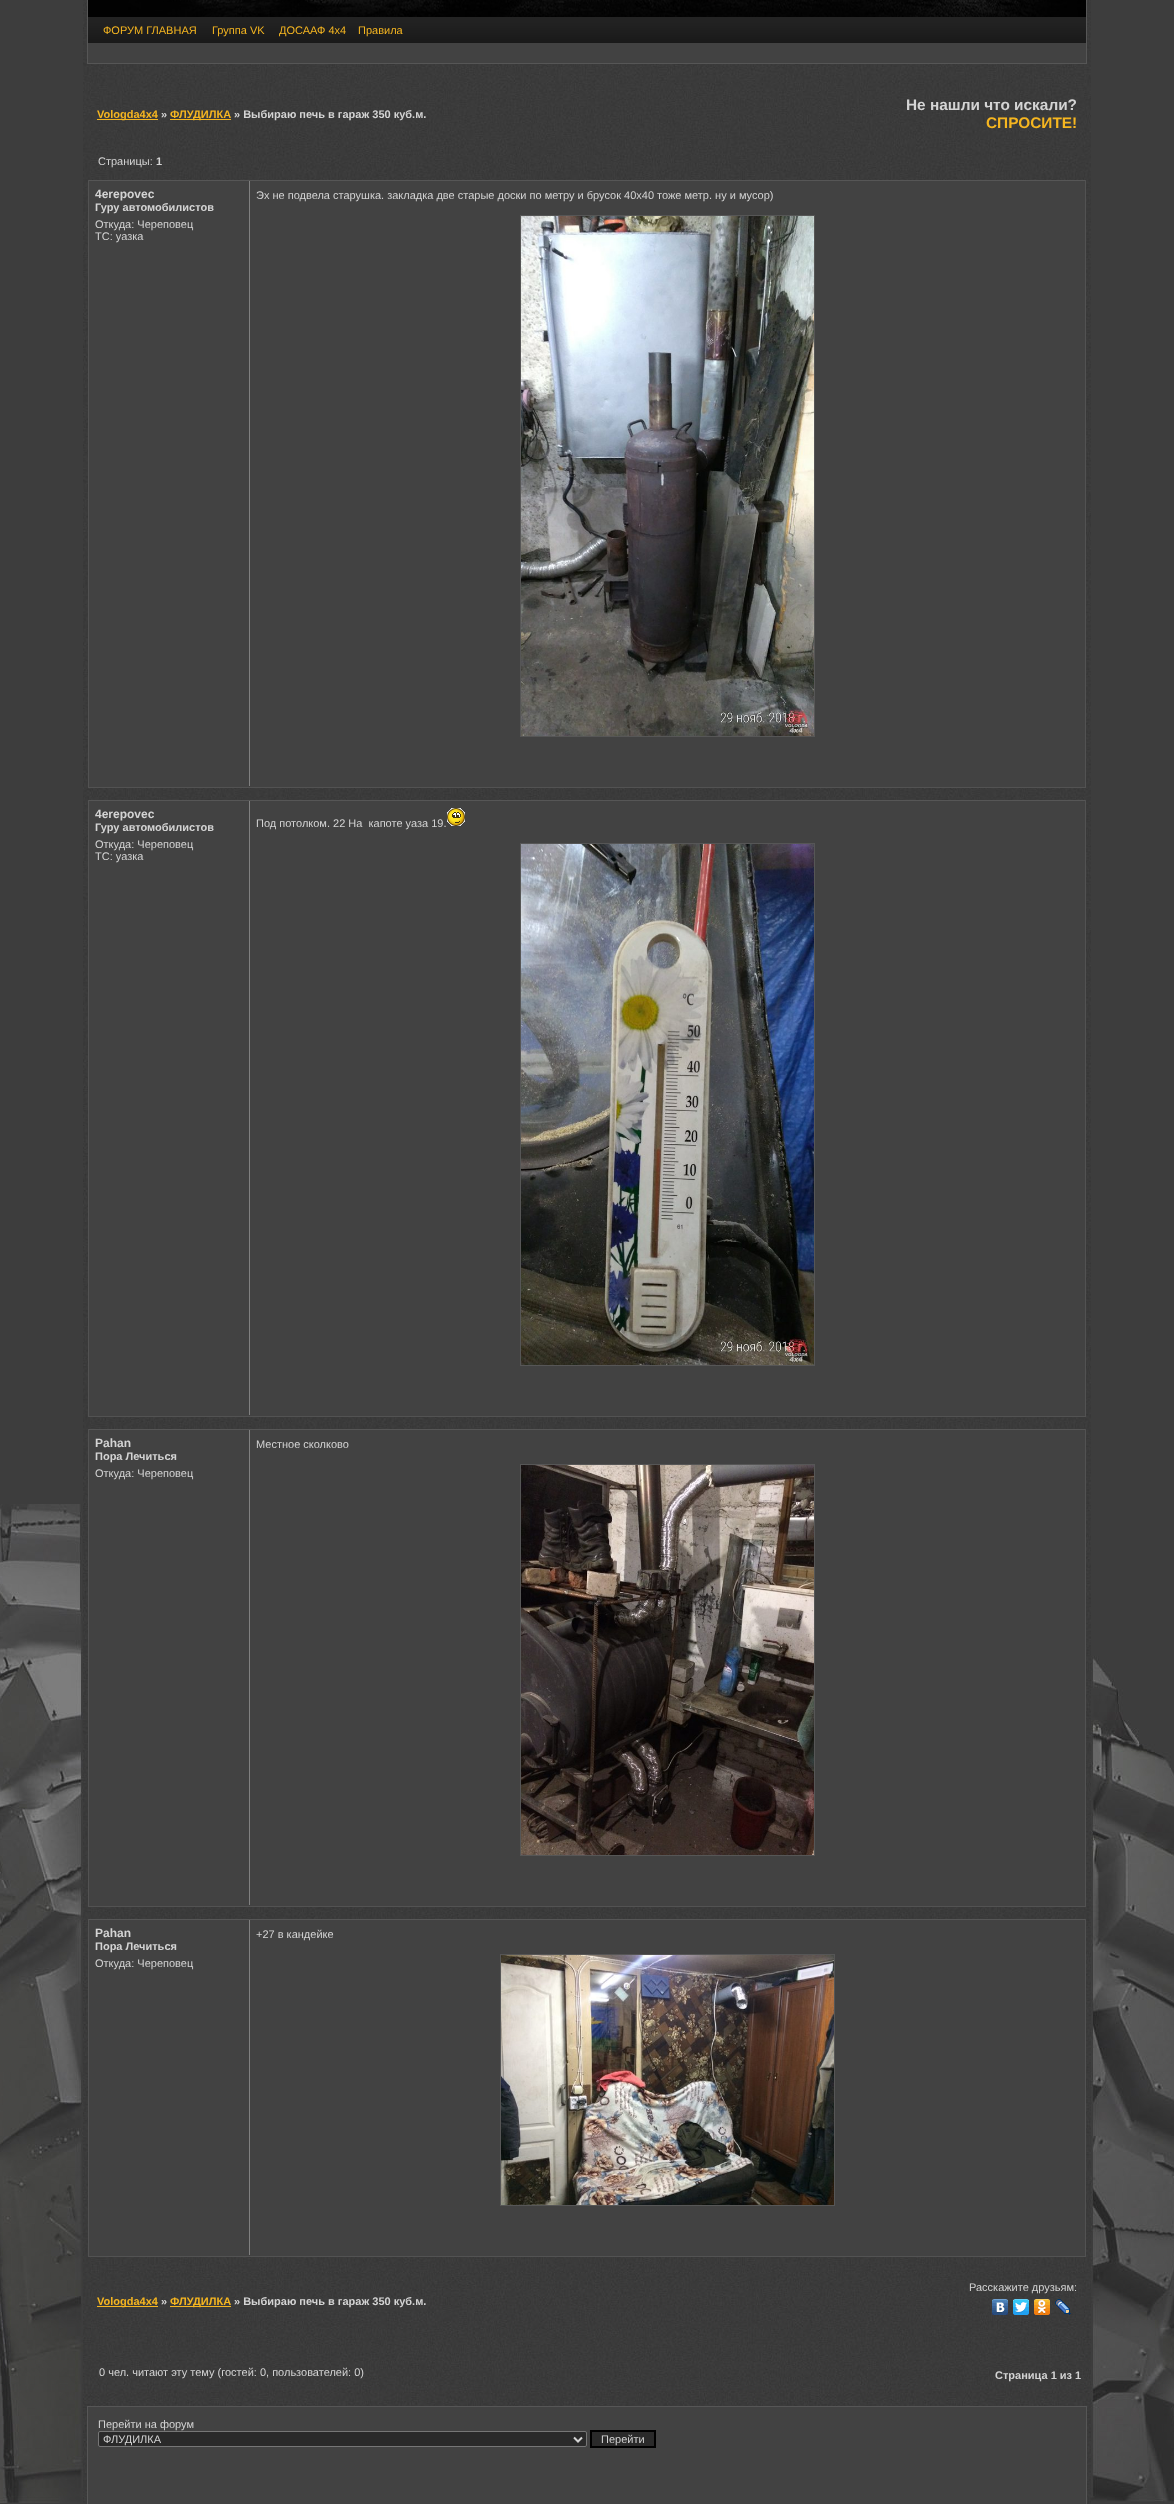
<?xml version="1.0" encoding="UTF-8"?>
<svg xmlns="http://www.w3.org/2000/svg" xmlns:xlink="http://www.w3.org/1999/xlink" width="1174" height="2504">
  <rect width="100%" height="100%" fill="#3d3d3d" />
  <image x="0" y="1504" width="1174" height="999" xlink:href="image1.png" />
  <image x="83" y="0" width="1008" height="2504" xlink:href="image2.png" />
  <rect x="88" y="43" width="998" height="20" fill="#424242" />
  <rect x="87.5" y="-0.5" width="999" height="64" fill="none" stroke="#565656" />
  <image x="88" y="0" width="998" height="17" xlink:href="image3.png" />
  <image x="88" y="17" width="998" height="26" xlink:href="image4.png" />
  <rect x="97" y="119" width="61" height="1" fill="#f6b620" />
  <rect x="170" y="119" width="61" height="1" fill="#f6b620" />
  <rect x="89" y="181" width="996" height="606" fill="#424242" />
  <rect x="88" y="180" width="998" height="1" fill="#565656" />
  <rect x="1085" y="180" width="1" height="608" fill="#525252" />
  <rect x="88" y="787" width="998" height="1" fill="#525252" />
  <rect x="88" y="180" width="1" height="608" fill="#525252" />
  <rect x="249" y="181" width="1" height="605" fill="#808080" />
  <rect x="520.5" y="215.5" width="294" height="521" fill="none" stroke="#565656" />
  <image x="521" y="216" width="293" height="520" xlink:href="image5.png" />
  <rect x="89" y="801" width="996" height="615" fill="#424242" />
  <rect x="88" y="800" width="998" height="1" fill="#565656" />
  <rect x="1085" y="800" width="1" height="617" fill="#525252" />
  <rect x="88" y="1416" width="998" height="1" fill="#525252" />
  <rect x="88" y="800" width="1" height="617" fill="#525252" />
  <rect x="249" y="801" width="1" height="614" fill="#808080" />
  <image x="447" y="808" width="18" height="18" xlink:href="image6.png" />
  <rect x="520.5" y="843.5" width="294" height="522" fill="none" stroke="#565656" />
  <image x="521" y="844" width="293" height="521" xlink:href="image7.png" />
  <rect x="89" y="1430" width="996" height="476" fill="#424242" />
  <rect x="88" y="1429" width="998" height="1" fill="#565656" />
  <rect x="1085" y="1429" width="1" height="478" fill="#525252" />
  <rect x="88" y="1906" width="998" height="1" fill="#525252" />
  <rect x="88" y="1429" width="1" height="478" fill="#525252" />
  <rect x="249" y="1430" width="1" height="475" fill="#808080" />
  <rect x="520.5" y="1464.5" width="294" height="391" fill="none" stroke="#565656" />
  <image x="521" y="1465" width="293" height="390" xlink:href="image8.png" />
  <rect x="89" y="1920" width="996" height="336" fill="#424242" />
  <rect x="88" y="1919" width="998" height="1" fill="#565656" />
  <rect x="1085" y="1919" width="1" height="338" fill="#525252" />
  <rect x="88" y="2256" width="998" height="1" fill="#525252" />
  <rect x="88" y="1919" width="1" height="338" fill="#525252" />
  <rect x="249" y="1920" width="1" height="335" fill="#808080" />
  <rect x="500.5" y="1954.5" width="334" height="251" fill="none" stroke="#565656" />
  <image x="501" y="1955" width="333" height="250" xlink:href="image9.png" />
  <image x="992" y="2299" width="16" height="16" xlink:href="image10.png" />
  <image x="1013" y="2299" width="16" height="16" xlink:href="image11.png" />
  <image x="1034" y="2299" width="16" height="16" xlink:href="image12.png" />
  <image x="1055" y="2299" width="16" height="16" xlink:href="image13.png" />
  <rect x="97" y="2306" width="61" height="1" fill="#f6b620" />
  <rect x="170" y="2306" width="61" height="1" fill="#f6b620" />
  <rect x="87.5" y="2406.5" width="999" height="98" fill="#424242" stroke="#565656" />
  <rect x="98.5" y="2431.5" width="488" height="15" rx="1.5" fill="#2a2a2a" stroke="#767676" />
  <path d="M 574 2437.5 l 4 4 l 4 -4" fill="none" stroke="#d4d4d4" stroke-width="2" />
  <rect x="591" y="2431" width="64" height="16" fill="#2a2a2a" stroke="#000000" stroke-width="2" />
  <text x="103" y="34" style="font-family: Liberation Sans; font-size: 11px; fill: #f6b620">ФОРУМ ГЛАВНАЯ</text>
  <text x="212" y="34" style="font-family: Liberation Sans; font-size: 11px; fill: #f6b620">Группа VK</text>
  <text x="279" y="34" style="font-family: Liberation Sans; font-size: 11px; fill: #f6b620">ДОСААФ 4х4</text>
  <text x="358" y="34" style="font-family: Liberation Sans; font-size: 11px; fill: #f6b620">Правила</text>
  <text x="97" y="118" style="font-family: Liberation Sans; font-size: 11px; font-weight: bold; fill: #f6b620">Vologda4x4</text>
  <text x="161" y="118" style="font-family: Liberation Sans; font-size: 11px; font-weight: bold; fill: #d4d4d4">»</text>
  <text x="170" y="118" style="font-family: Liberation Sans; font-size: 11px; font-weight: bold; fill: #f6b620">ФЛУДИЛКА</text>
  <text x="234" y="118" style="font-family: Liberation Sans; font-size: 11px; font-weight: bold; fill: #d4d4d4">» Выбираю печь в гараж 350 куб.м.</text>
  <text x="906" y="110" style="font-family: Liberation Sans; font-size: 15.4px; font-weight: bold; fill: #d4d4d4">Не нашли что искали?</text>
  <text x="986" y="128" style="font-family: Liberation Sans; font-size: 15.4px; font-weight: bold; fill: #f6b620">СПРОСИТЕ!</text>
  <text x="98" y="165" style="font-family: Liberation Sans; font-size: 11px; fill: #d4d4d4">Страницы:</text>
  <text x="156" y="165" style="font-family: Liberation Sans; font-size: 11px; font-weight: bold; fill: #d4d4d4">1</text>
  <text x="95" y="198" style="font-family: Liberation Sans; font-size: 12px; font-weight: bold; fill: #d4d4d4">4erepovec</text>
  <text x="95" y="211" style="font-family: Liberation Sans; font-size: 11px; font-weight: bold; fill: #d4d4d4">Гуру автомобилистов</text>
  <text x="95" y="228" style="font-family: Liberation Sans; font-size: 11px; fill: #d4d4d4">Откуда: Череповец</text>
  <text x="95" y="240" style="font-family: Liberation Sans; font-size: 11px; fill: #d4d4d4">ТС: уазка</text>
  <text x="256" y="199" style="font-family: Liberation Sans; font-size: 11px; fill: #d4d4d4">Эх не подвела старушка. закладка две старые доски по метру и брусок 40х40 тоже метр. ну и мусор)</text>
  <text x="95" y="818" style="font-family: Liberation Sans; font-size: 12px; font-weight: bold; fill: #d4d4d4">4erepovec</text>
  <text x="95" y="831" style="font-family: Liberation Sans; font-size: 11px; font-weight: bold; fill: #d4d4d4">Гуру автомобилистов</text>
  <text x="95" y="848" style="font-family: Liberation Sans; font-size: 11px; fill: #d4d4d4">Откуда: Череповец</text>
  <text x="95" y="860" style="font-family: Liberation Sans; font-size: 11px; fill: #d4d4d4">ТС: уазка</text>
  <text x="256" y="827" style="font-family: Liberation Sans; font-size: 11px; fill: #d4d4d4" xml:space="preserve">Под потолком. 22 На  капоте уаза 19.</text>
  <text x="95" y="1447" style="font-family: Liberation Sans; font-size: 12px; font-weight: bold; fill: #d4d4d4">Pahan</text>
  <text x="95" y="1460" style="font-family: Liberation Sans; font-size: 11px; font-weight: bold; fill: #d4d4d4">Пора Лечиться</text>
  <text x="95" y="1477" style="font-family: Liberation Sans; font-size: 11px; fill: #d4d4d4">Откуда: Череповец</text>
  <text x="256" y="1448" style="font-family: Liberation Sans; font-size: 11px; fill: #d4d4d4">Местное сколково</text>
  <text x="95" y="1937" style="font-family: Liberation Sans; font-size: 12px; font-weight: bold; fill: #d4d4d4">Pahan</text>
  <text x="95" y="1950" style="font-family: Liberation Sans; font-size: 11px; font-weight: bold; fill: #d4d4d4">Пора Лечиться</text>
  <text x="95" y="1967" style="font-family: Liberation Sans; font-size: 11px; fill: #d4d4d4">Откуда: Череповец</text>
  <text x="256" y="1938" style="font-family: Liberation Sans; font-size: 11px; fill: #d4d4d4">+27 в кандейке</text>
  <text x="969" y="2291" style="font-family: Liberation Sans; font-size: 11px; fill: #d4d4d4">Расскажите друзьям:</text>
  <text x="97" y="2305" style="font-family: Liberation Sans; font-size: 11px; font-weight: bold; fill: #f6b620">Vologda4x4</text>
  <text x="161" y="2305" style="font-family: Liberation Sans; font-size: 11px; font-weight: bold; fill: #d4d4d4">»</text>
  <text x="170" y="2305" style="font-family: Liberation Sans; font-size: 11px; font-weight: bold; fill: #f6b620">ФЛУДИЛКА</text>
  <text x="234" y="2305" style="font-family: Liberation Sans; font-size: 11px; font-weight: bold; fill: #d4d4d4">» Выбираю печь в гараж 350 куб.м.</text>
  <text x="99" y="2376" style="font-family: Liberation Sans; font-size: 11px; fill: #d4d4d4">0 чел. читают эту тему (гостей: 0, пользователей: 0)</text>
  <text x="995" y="2379" style="font-family: Liberation Sans; font-size: 11px; font-weight: bold; fill: #d4d4d4">Страница 1 из 1</text>
  <text x="98" y="2428" style="font-family: Liberation Sans; font-size: 11px; fill: #d4d4d4">Перейти на форум</text>
  <text x="103" y="2443" style="font-family: Liberation Sans; font-size: 11px; fill: #d4d4d4">ФЛУДИЛКА</text>
  <text x="601" y="2443" style="font-family: Liberation Sans; font-size: 11px; fill: #d4d4d4">Перейти</text>
</svg>
